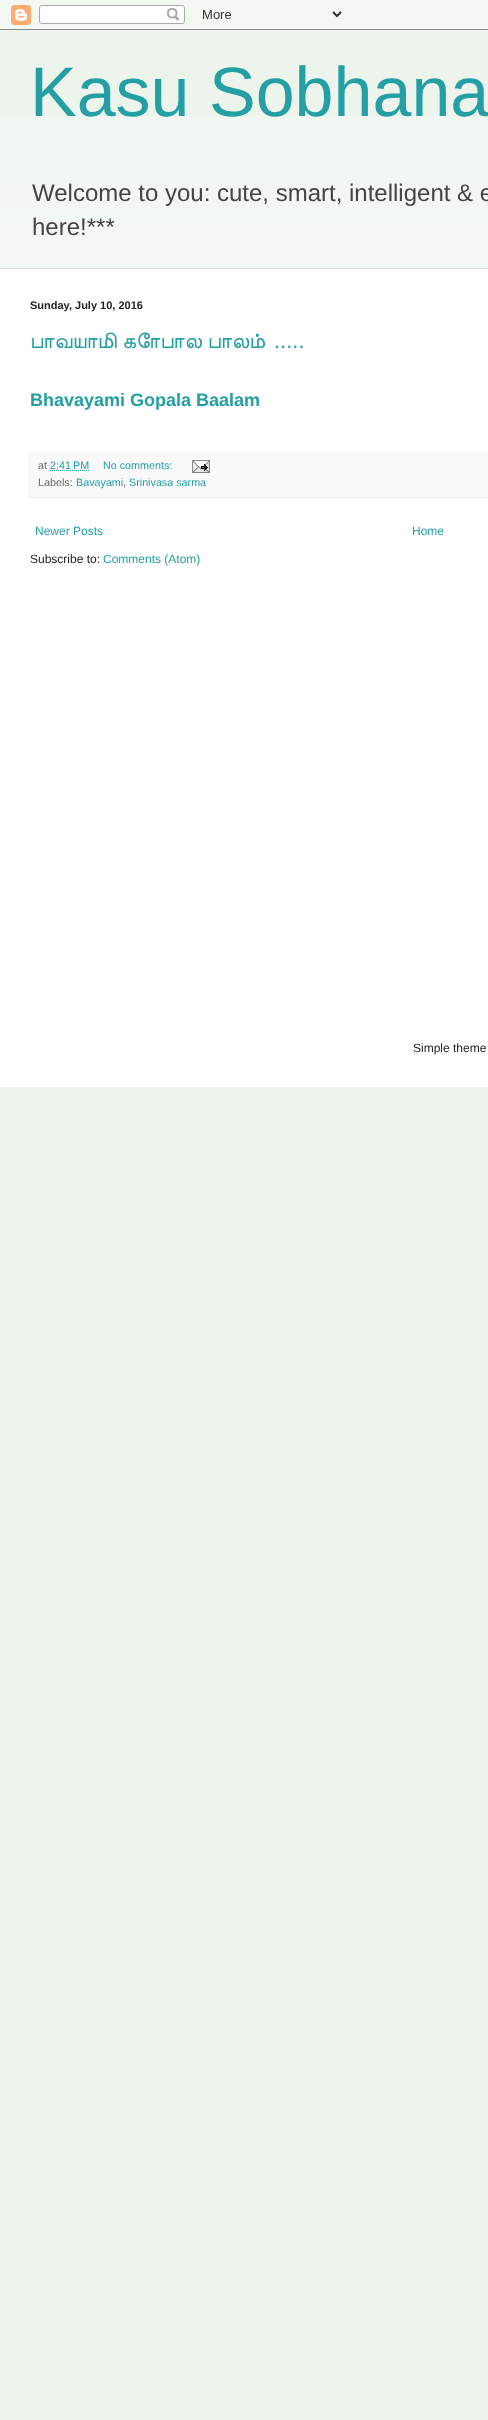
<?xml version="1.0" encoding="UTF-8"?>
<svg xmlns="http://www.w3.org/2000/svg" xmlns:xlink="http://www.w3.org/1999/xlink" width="488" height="2420">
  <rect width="100%" height="100%" fill="#ecf4ec" />
  <image x="0" y="0" width="488" height="30" xlink:href="image1.png" />
  <rect y="269" width="488" height="818" fill="#ffffff" />
  <rect y="268" width="488" height="1" fill="#dddddd" />
  <rect x="28" y="452" width="460" height="45" fill="#f9f9f9" />
  <rect x="28" y="497" width="460" height="1" fill="#eeeeee" />
  <path d="M 50 470.5 h 39.5" fill="none" stroke="#249fa3" stroke-dasharray="1 1" />
  <image x="192" y="460" width="18" height="13" xlink:href="image2.png" />
  <image x="0" y="116" width="488" height="152" xlink:href="image3.png" />
  <text x="30" y="116" style="font-family: Liberation Sans; font-size: 70px; fill: #249fa3">Kasu Sobhana</text>
  <text x="32" y="201" style="font-family: Liberation Sans; font-size: 24px; fill: #444444">Welcome to you: cute, smart, intelligent &amp; e</text>
  <text x="32" y="235" style="font-family: Liberation Sans; font-size: 24px; fill: #444444">here!***</text>
  <text x="30" y="309" style="font-family: Liberation Sans; font-size: 11px; font-weight: bold; fill: #222222">Sunday, July 10, 2016</text>
  <text x="30" y="348" style="font-family: FreeSans; font-size: 22px; fill: #249fa3">பாவயாமி கோபால பாலம்</text>
  <text x="274" y="348" style="font-family: Liberation Sans; font-size: 22px; fill: #249fa3">.....</text>
  <text x="30" y="406" style="font-family: Liberation Sans; font-size: 18px; font-weight: bold; fill: #249fa3">Bhavayami Gopala Baalam</text>
  <text x="38" y="469" style="font-family: Liberation Sans; font-size: 10.75px; fill: #666666">at</text>
  <text x="50" y="469" style="font-family: Liberation Sans; font-size: 10.75px; fill: #249fa3">2:41 PM</text>
  <text x="103" y="469" style="font-family: Liberation Sans; font-size: 10.75px; fill: #249fa3">No comments:</text>
  <text x="38" y="486" style="font-family: Liberation Sans; font-size: 10.75px; fill: #666666">Labels:</text>
  <text x="76" y="486" style="font-family: Liberation Sans; font-size: 10.75px; fill: #249fa3">Bavayami</text>
  <text x="123" y="486" style="font-family: Liberation Sans; font-size: 10.75px; fill: #666666">,</text>
  <text x="129" y="486" style="font-family: Liberation Sans; font-size: 10.75px; fill: #249fa3">Srinivasa sarma</text>
  <text x="35" y="535" style="font-family: Liberation Sans; font-size: 12px; fill: #249fa3">Newer Posts</text>
  <text x="412" y="535" style="font-family: Liberation Sans; font-size: 12px; fill: #249fa3">Home</text>
  <text x="30" y="563" style="font-family: Liberation Sans; font-size: 12px; fill: #222222">Subscribe to:</text>
  <text x="103" y="563" style="font-family: Liberation Sans; font-size: 12px; fill: #249fa3">Comments (Atom)</text>
  <text x="413" y="1052" style="font-family: Liberation Sans; font-size: 12px; fill: #222222">Simple theme</text>
</svg>
